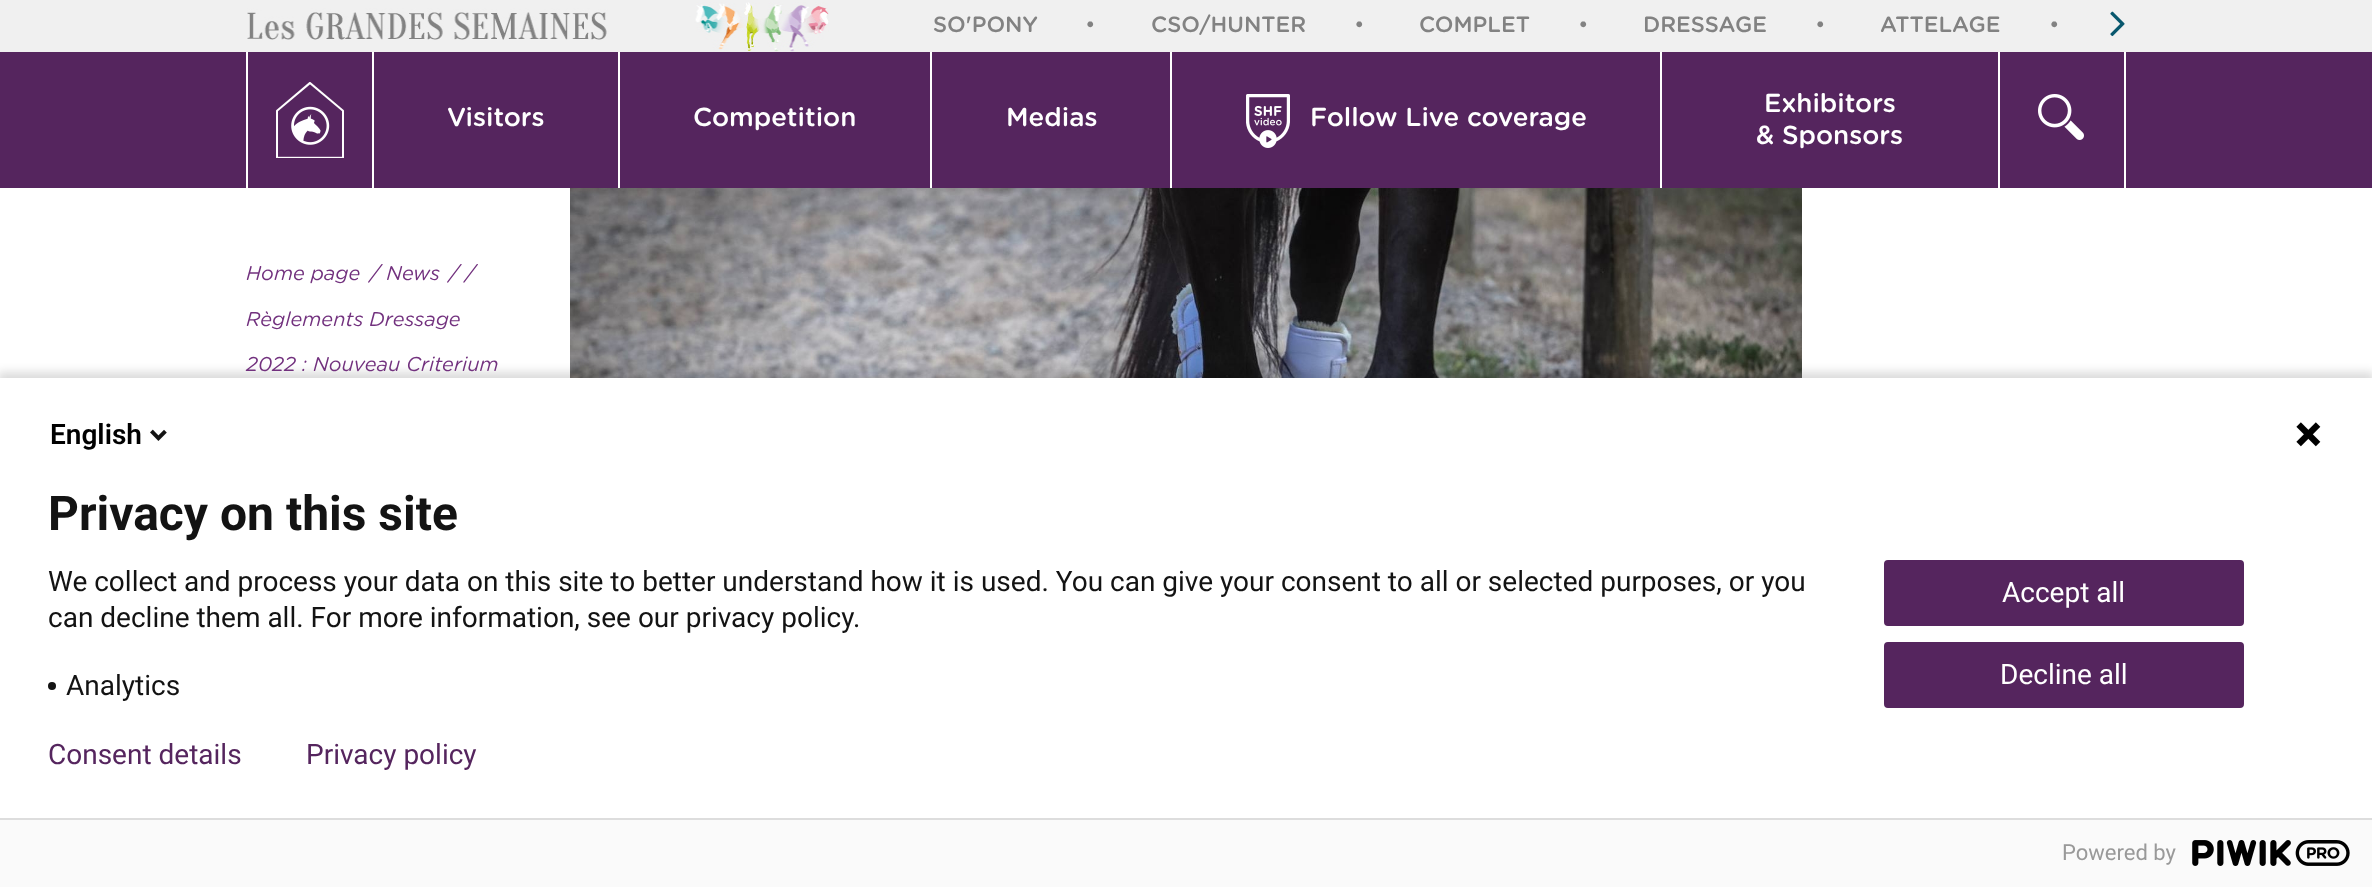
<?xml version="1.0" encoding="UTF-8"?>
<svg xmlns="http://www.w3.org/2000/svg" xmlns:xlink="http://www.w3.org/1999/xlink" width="2372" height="887">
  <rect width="100%" height="100%" fill="#ffffff" />
  <rect width="2372" height="52" fill="#f0f0f0" />
  <image x="247" y="2" width="582" height="50" xlink:href="image1.png" />
  <image x="2110" y="11" width="15" height="26" xlink:href="image2.png" />
  <rect y="52" width="2372" height="136" fill="#55255e" />
  <rect x="372" y="52" width="2" height="136" fill="#ffffff" />
  <rect x="246" y="52" width="2" height="136" fill="#ffffff" />
  <image x="276" y="82" width="68" height="76" xlink:href="image3.png" />
  <rect x="618" y="52" width="2" height="136" fill="#ffffff" />
  <rect x="930" y="52" width="2" height="136" fill="#ffffff" />
  <rect x="1170" y="52" width="2" height="136" fill="#ffffff" />
  <rect x="1660" y="52" width="2" height="136" fill="#ffffff" />
  <image x="1246" y="94" width="44" height="54" xlink:href="image4.png" />
  <rect x="1998" y="52" width="2" height="136" fill="#ffffff" />
  <rect x="2124" y="52" width="2" height="136" fill="#ffffff" />
  <image x="2038" y="94" width="46" height="46" xlink:href="image5.png" />
  <image x="570" y="188" width="1232" height="190" xlink:href="image6.png" />
  <rect x="-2" y="372" width="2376" height="514" fill="#000000" fill-opacity="0.14" filter="blur(5px)" />
  <rect y="378" width="2372" height="440" fill="#ffffff" />
  <image x="150" y="429" width="17" height="12" xlink:href="image7.png" />
  <image x="2296" y="422" width="25" height="25" xlink:href="image8.png" />
  <circle cx="52" cy="686" r="4" fill="#131313" />
  <rect x="1885" y="561" width="358" height="64" rx="3" fill="#55255e" stroke="#55255e" stroke-width="2" />
  <rect x="1885" y="643" width="358" height="64" rx="3" fill="#55255e" stroke="#55255e" stroke-width="2" />
  <rect y="820" width="2372" height="67" fill="#fafafa" />
  <rect y="818" width="2372" height="2" fill="#dddddd" />
  <image x="2192" y="840" width="158" height="26" xlink:href="image9.png" />
  <text x="933" y="32" style="font-family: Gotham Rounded; font-size: 22px; font-weight: 500; fill: #828282">SO'PONY</text>
  <text x="1085" y="32" style="font-family: Gotham Rounded; font-size: 22px; fill: #828282">•</text>
  <text x="1151" y="32" style="font-family: Gotham Rounded; font-size: 22px; font-weight: 500; fill: #828282">CSO/HUNTER</text>
  <text x="1354" y="32" style="font-family: Gotham Rounded; font-size: 22px; fill: #828282">•</text>
  <text x="1419" y="32" style="font-family: Gotham Rounded; font-size: 22px; font-weight: 500; fill: #828282">COMPLET</text>
  <text x="1578" y="32" style="font-family: Gotham Rounded; font-size: 22px; fill: #828282">•</text>
  <text x="1643" y="32" style="font-family: Gotham Rounded; font-size: 22px; font-weight: 500; fill: #828282">DRESSAGE</text>
  <text x="1815" y="32" style="font-family: Gotham Rounded; font-size: 22px; fill: #828282">•</text>
  <text x="1880" y="32" style="font-family: Gotham Rounded; font-size: 22px; font-weight: 500; fill: #828282">ATTELAGE</text>
  <text x="2049" y="32" style="font-family: Gotham Rounded; font-size: 22px; fill: #828282">•</text>
  <text x="447" y="126" style="font-family: Gotham Rounded; font-size: 26px; font-weight: 500; fill: #ffffff">Visitors</text>
  <text x="693" y="126" style="font-family: Gotham Rounded; font-size: 26px; font-weight: 500; fill: #ffffff">Competition</text>
  <text x="1006" y="126" style="font-family: Gotham Rounded; font-size: 26px; font-weight: 500; fill: #ffffff">Medias</text>
  <text x="1310" y="126" style="font-family: Gotham Rounded; font-size: 26px; font-weight: 500; fill: #ffffff">Follow Live coverage</text>
  <text x="1764" y="112" style="font-family: Gotham Rounded; font-size: 26px; font-weight: 500; fill: #ffffff">Exhibitors</text>
  <text x="1756" y="144" style="font-family: Gotham Rounded; font-size: 26px; font-weight: 500; fill: #ffffff">&amp; Sponsors</text>
  <text x="246" y="280" style="font-family: Gotham Rounded; font-size: 20px; font-style: italic; fill: #72317e">Home page</text>
  <text x="370" y="280" style="font-family: Gotham Rounded; font-size: 20px; font-style: italic; fill: #72317e">/ News</text>
  <text x="449" y="280" style="font-family: Gotham Rounded; font-size: 20px; font-style: italic; fill: #72317e">/ /</text>
  <text x="246" y="326" style="font-family: Gotham Rounded; font-size: 20px; font-style: italic; fill: #72317e">Règlements Dressage</text>
  <text x="246" y="371" style="font-family: Gotham Rounded; font-size: 20px; font-style: italic; fill: #72317e">2022 : Nouveau Criterium</text>
  <text x="50" y="444" style="font-family: Roboto; font-size: 28px; font-weight: 600; fill: #000000">English</text>
  <text x="48" y="530" style="font-family: Roboto; font-size: 48px; font-weight: bold; fill: #131313">Privacy on this site</text>
  <text x="48" y="591" style="font-family: Roboto; font-size: 28px; fill: #131313">We collect and process your data on this site to better understand how it is used. You can give your consent to all or selected purposes, or you</text>
  <text x="48" y="627" style="font-family: Roboto; font-size: 28px; fill: #131313">can decline them all. For more information, see our privacy policy.</text>
  <text x="66" y="695" style="font-family: Roboto; font-size: 28px; fill: #131313">Analytics</text>
  <text x="2002" y="602" style="font-family: Roboto; font-size: 28px; fill: #ffffff">Accept all</text>
  <text x="2000" y="684" style="font-family: Roboto; font-size: 28px; fill: #ffffff">Decline all</text>
  <text x="48" y="764" style="font-family: Roboto; font-size: 28px; fill: #55255e">Consent details</text>
  <text x="306" y="764" style="font-family: Roboto; font-size: 28px; fill: #55255e">Privacy policy</text>
  <text x="2062" y="860" style="font-family: Roboto; font-size: 22px; fill: #999999">Powered by</text>
</svg>
